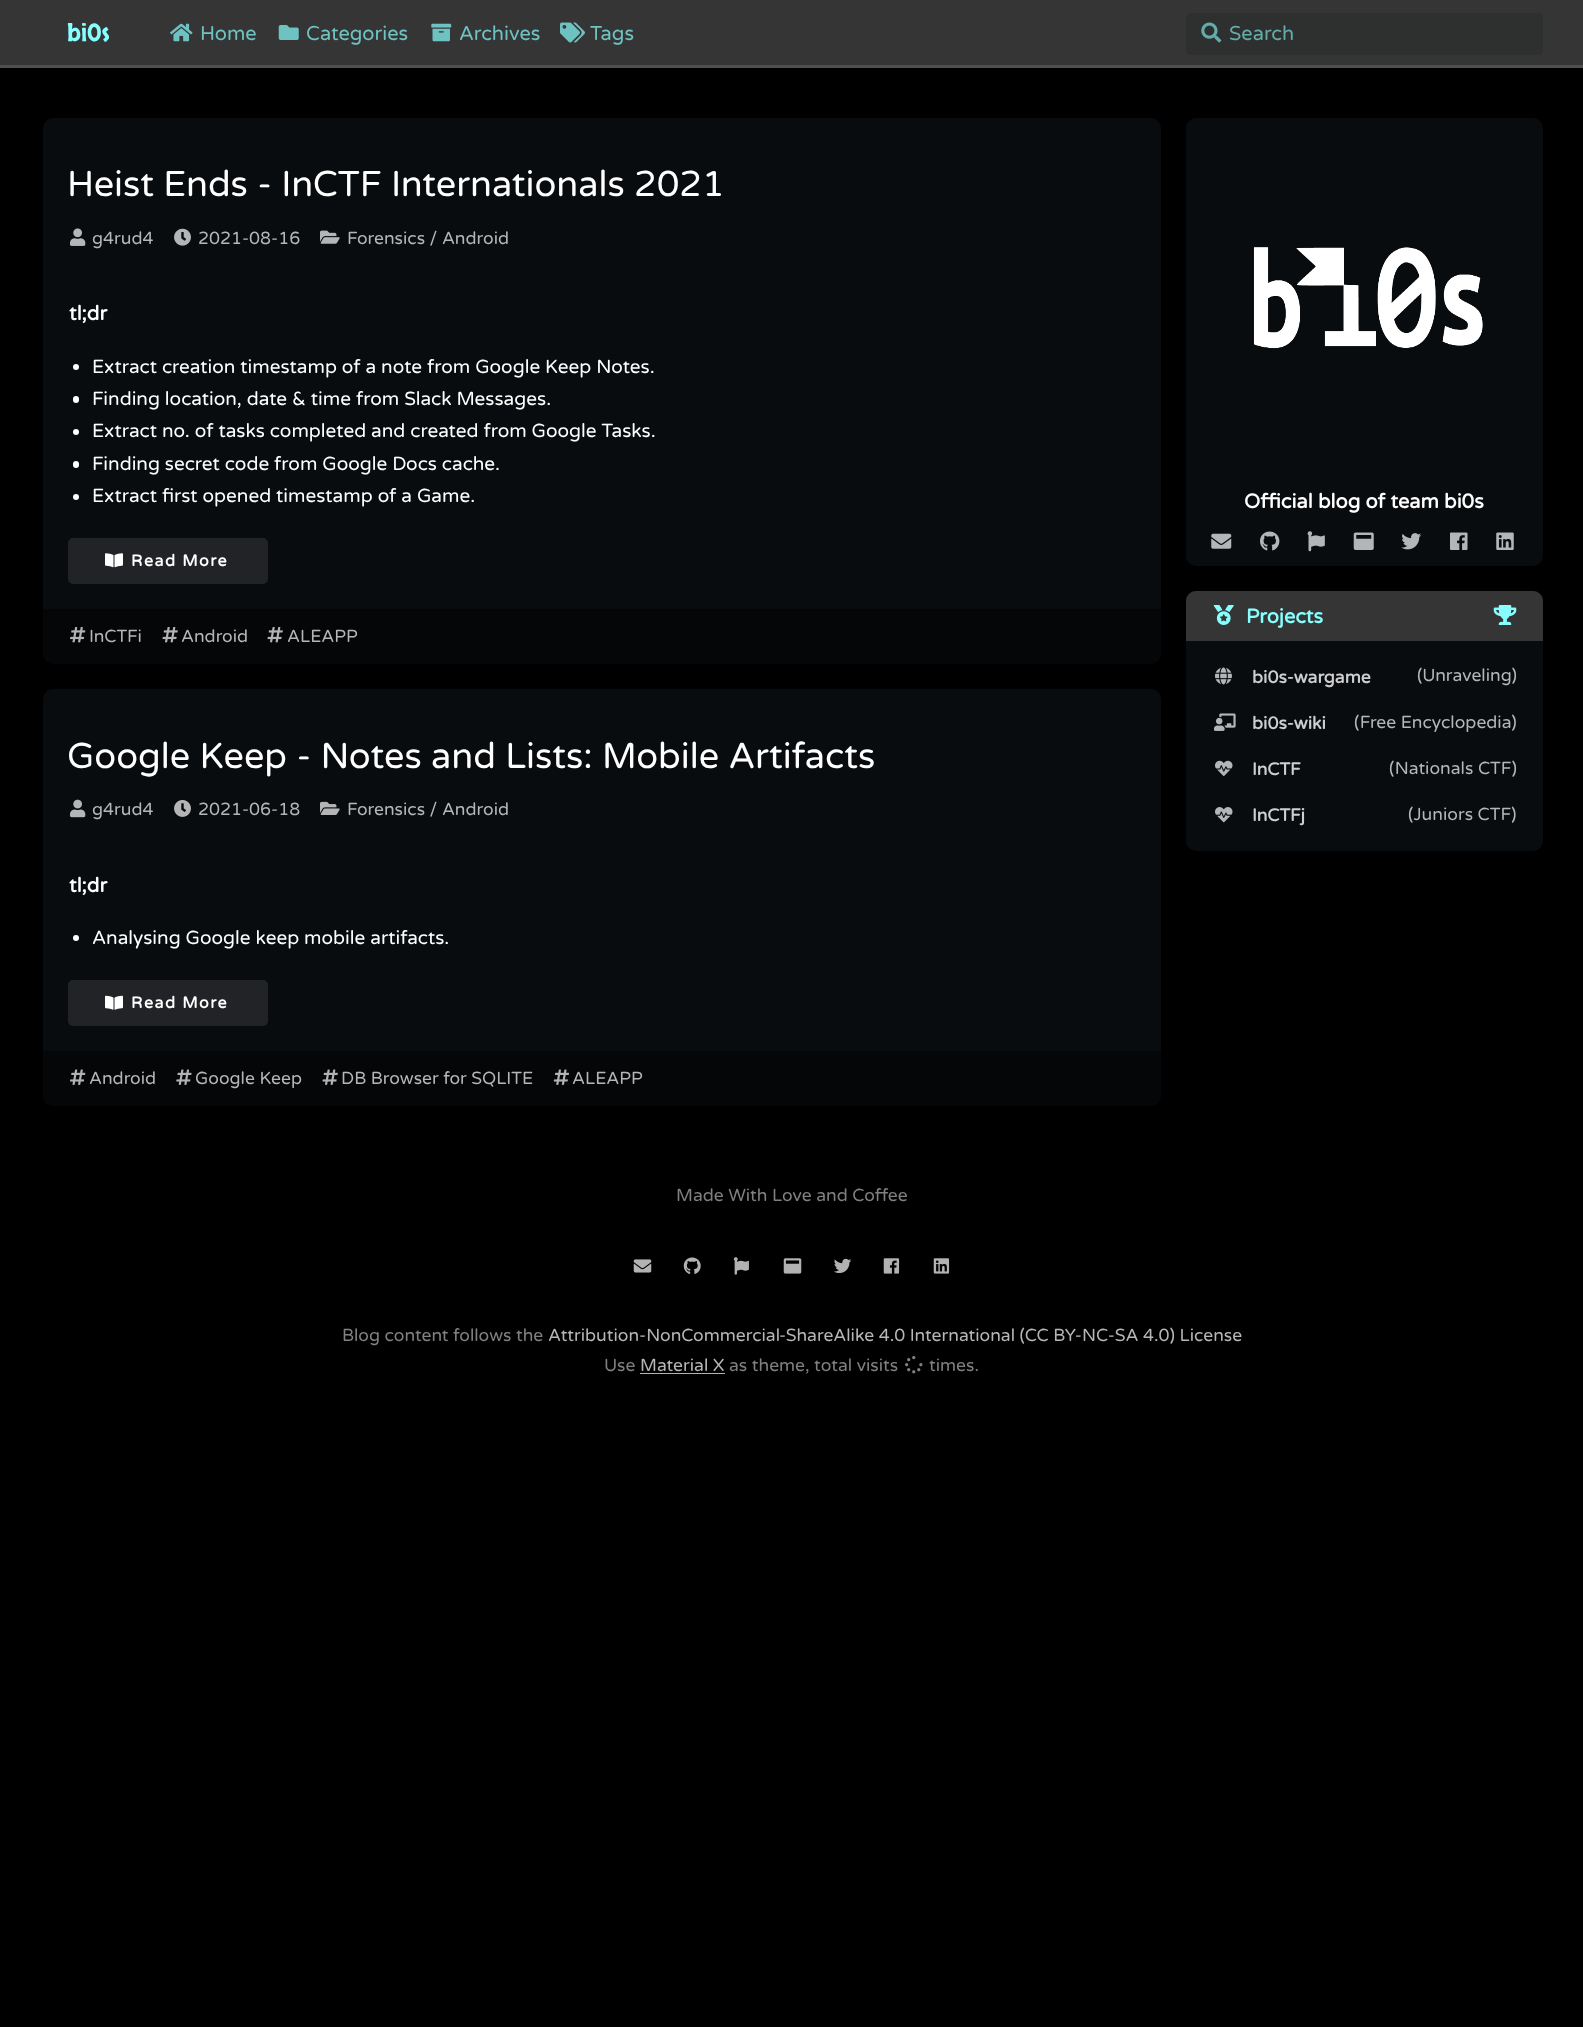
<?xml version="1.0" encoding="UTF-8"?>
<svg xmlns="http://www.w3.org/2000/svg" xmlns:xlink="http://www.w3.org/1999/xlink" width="1583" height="2027">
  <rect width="100%" height="100%" fill="#000000" />
  <rect width="1583" height="65" fill="#353535" />
  <image x="170" y="23" width="23" height="19" xlink:href="image1.png" />
  <image x="278" y="25" width="21" height="15" xlink:href="image2.png" />
  <image x="431" y="23" width="21" height="19" xlink:href="image3.png" />
  <image x="560" y="22" width="25" height="21" xlink:href="image4.png" />
  <rect x="1186" y="13" width="357" height="42" rx="5" fill="#2e2f2f" />
  <image x="1201" y="22" width="21" height="21" xlink:href="image5.png" />
  <rect y="65" width="1583" height="3" fill="#4f4f4f" />
  <rect x="43" y="118" width="1118" height="546" rx="10" fill="#090c0e" />
  <image x="70" y="228" width="16" height="18" xlink:href="image6.png" />
  <image x="174" y="228" width="17" height="18" xlink:href="image7.png" />
  <image x="320" y="230" width="20" height="14" xlink:href="image8.png" />
  <circle cx="76" cy="367" r="3" fill="#ffffff" />
  <rect x="73" y="396" width="6" height="7" rx="3" fill="#ffffff" />
  <circle cx="76" cy="432" r="3" fill="#ffffff" />
  <rect x="73" y="461" width="6" height="7" rx="3" fill="#ffffff" />
  <circle cx="76" cy="497" r="3" fill="#ffffff" />
  <rect x="68" y="538" width="200" height="46" rx="5" fill="#222326" />
  <image x="105" y="553" width="18" height="15" xlink:href="image9.png" />
  <path d="M 43 609 h 1118 v 45 c 0 5.5 -4.5 10 -10 10 h -1098 c -5.5 0 -10 -4.5 -10 -10 z" fill="#000000" fill-opacity="0.5" />
  <image x="70" y="627" width="16" height="16" xlink:href="image10.png" />
  <image x="162" y="627" width="16" height="16" xlink:href="image11.png" />
  <image x="267" y="627" width="16" height="16" xlink:href="image11.png" />
  <rect x="43" y="689" width="1118" height="417" rx="10" fill="#090c0e" />
  <image x="70" y="799" width="16" height="19" xlink:href="image12.png" />
  <image x="174" y="800" width="17" height="17" xlink:href="image13.png" />
  <image x="320" y="801" width="20" height="14" xlink:href="image14.png" />
  <circle cx="76" cy="938" r="3" fill="#ffffff" />
  <rect x="68" y="980" width="200" height="46" rx="5" fill="#222326" />
  <image x="105" y="995" width="18" height="15" xlink:href="image15.png" />
  <path d="M 43 1051 h 1118 v 45 c 0 5.5 -4.5 10 -10 10 h -1098 c -5.5 0 -10 -4.5 -10 -10 z" fill="#000000" fill-opacity="0.5" />
  <image x="70" y="1069" width="16" height="16" xlink:href="image16.png" />
  <image x="176" y="1069" width="16" height="16" xlink:href="image17.png" />
  <image x="322" y="1069" width="16" height="16" xlink:href="image18.png" />
  <image x="553" y="1069" width="16" height="16" xlink:href="image19.png" />
  <rect x="1186" y="118" width="357" height="448" rx="10" fill="#090c0e" />
  <image x="1253" y="247" width="230" height="102" xlink:href="image20.png" />
  <image x="1211" y="533" width="21" height="16" xlink:href="image21.png" />
  <image x="1260" y="531" width="20" height="20" xlink:href="image22.png" />
  <image x="1307" y="531" width="18" height="21" xlink:href="image23.png" />
  <image x="1353" y="532" width="21" height="18" xlink:href="image24.png" />
  <image x="1401" y="533" width="20" height="17" xlink:href="image25.png" />
  <image x="1450" y="532" width="18" height="18" xlink:href="image26.png" />
  <image x="1496" y="532" width="18" height="18" xlink:href="image27.png" />
  <rect x="1186" y="591" width="357" height="260" rx="10" fill="#090c0e" />
  <path d="M 1196 591 h 337 c 5.5 0 10 4.5 10 10 v 40 h -357 v -40 c 0 -5.5 4.5 -10 10 -10 z" fill="#353535" />
  <image x="1213" y="605" width="21" height="20" xlink:href="image28.png" />
  <image x="1493" y="605" width="24" height="20" xlink:href="image29.png" />
  <image x="1215" y="667" width="17" height="18" xlink:href="image30.png" />
  <image x="1214" y="713" width="22" height="18" xlink:href="image31.png" />
  <image x="1215" y="760" width="18" height="16" xlink:href="image32.png" />
  <image x="1215" y="807" width="18" height="16" xlink:href="image33.png" />
  <image x="633" y="1259" width="19" height="14" xlink:href="image34.png" />
  <image x="683" y="1257" width="18" height="17" xlink:href="image35.png" />
  <image x="733" y="1257" width="16" height="18" xlink:href="image36.png" />
  <image x="783" y="1258" width="19" height="16" xlink:href="image37.png" />
  <image x="834" y="1258" width="18" height="15" xlink:href="image38.png" />
  <image x="883" y="1258" width="17" height="16" xlink:href="image39.png" />
  <image x="933" y="1258" width="17" height="16" xlink:href="image40.png" />
  <rect x="640" y="1373" width="85" height="1" fill="#b3b3b3" />
  <image x="905" y="1356" width="18" height="18" xlink:href="image41.png" />
  <text x="67" y="41" style="font-family: Skranji; font-size: 24px; fill: #88ffff">bi0s</text>
  <text x="200" y="40" style="font-family: Varela Round; font-size: 20px; fill: #6fc2c2">Home</text>
  <text x="306" y="40" style="font-family: Varela Round; font-size: 20px; fill: #6fc2c2">Categories</text>
  <text x="459" y="40" style="font-family: Varela Round; font-size: 20px; fill: #6fc2c2">Archives</text>
  <text x="590" y="40" style="font-family: Varela Round; font-size: 20px; fill: #6fc2c2">Tags</text>
  <text x="1229" y="40" style="font-family: Varela Round; font-size: 20px; fill: #64acac">Search</text>
  <text x="67" y="196" style="font-family: Varela Round; font-size: 36px; fill: #ffffff">Heist Ends - InCTF Internationals 2021</text>
  <text x="92" y="244" style="font-family: Varela Round; font-size: 17.5px; fill: #b5b6b7">g4rud4</text>
  <text x="198" y="244" style="font-family: Varela Round; font-size: 17.5px; fill: #b5b6b7">2021-08-16</text>
  <text x="347" y="244" style="font-family: Varela Round; font-size: 17.5px; fill: #b5b6b7">Forensics / Android</text>
  <text x="69" y="320" style="font-family: Varela Round; font-size: 20px; font-weight: bold; fill: #ffffff">tl;dr</text>
  <text x="92" y="373" style="font-family: Varela Round; font-size: 19px; fill: #ffffff">Extract creation timestamp of a note from Google Keep Notes.</text>
  <text x="92" y="405" style="font-family: Varela Round; font-size: 19px; fill: #ffffff">Finding location, date &amp; time from Slack Messages.</text>
  <text x="92" y="437" style="font-family: Varela Round; font-size: 19px; fill: #ffffff">Extract no. of tasks completed and created from Google Tasks.</text>
  <text x="92" y="470" style="font-family: Varela Round; font-size: 19px; fill: #ffffff">Finding secret code from Google Docs cache.</text>
  <text x="92" y="502" style="font-family: Varela Round; font-size: 19px; fill: #ffffff">Extract first opened timestamp of a Game.</text>
  <text x="131" y="566" style="font-family: Varela Round; font-size: 16px; font-weight: bold; letter-spacing: 1.5px; fill: #ffffff">Read More</text>
  <text x="89" y="642" style="font-family: Varela Round; font-size: 17.5px; fill: #b5b6b7">InCTFi</text>
  <text x="181" y="642" style="font-family: Varela Round; font-size: 17.5px; fill: #b5b6b7">Android</text>
  <text x="287" y="642" style="font-family: Varela Round; font-size: 17.5px; fill: #b5b6b7">ALEAPP</text>
  <text x="67" y="768" style="font-family: Varela Round; font-size: 36px; fill: #ffffff">Google Keep - Notes and Lists: Mobile Artifacts</text>
  <text x="92" y="815" style="font-family: Varela Round; font-size: 17.5px; fill: #b5b6b7">g4rud4</text>
  <text x="198" y="815" style="font-family: Varela Round; font-size: 17.5px; fill: #b5b6b7">2021-06-18</text>
  <text x="347" y="815" style="font-family: Varela Round; font-size: 17.5px; fill: #b5b6b7">Forensics / Android</text>
  <text x="69" y="892" style="font-family: Varela Round; font-size: 20px; font-weight: bold; fill: #ffffff">tl;dr</text>
  <text x="92" y="944" style="font-family: Varela Round; font-size: 19px; fill: #ffffff">Analysing Google keep mobile artifacts.</text>
  <text x="131" y="1008" style="font-family: Varela Round; font-size: 16px; font-weight: bold; letter-spacing: 1.5px; fill: #ffffff">Read More</text>
  <text x="89" y="1084" style="font-family: Varela Round; font-size: 17.5px; fill: #b5b6b7">Android</text>
  <text x="195" y="1084" style="font-family: Varela Round; font-size: 17.5px; fill: #b5b6b7">Google Keep</text>
  <text x="341" y="1084" style="font-family: Varela Round; font-size: 17.5px; fill: #b5b6b7">DB Browser for SQLITE</text>
  <text x="572" y="1084" style="font-family: Varela Round; font-size: 17.5px; fill: #b5b6b7">ALEAPP</text>
  <text x="1244" y="508" style="font-family: Varela Round; font-size: 20px; font-weight: bold; fill: #ffffff">Official blog of team bi0s</text>
  <text x="1246" y="623" style="font-family: Varela Round; font-size: 20px; font-weight: bold; fill: #88ffff">Projects</text>
  <text x="1252" y="683" style="font-family: Varela Round; font-size: 17.5px; font-weight: bold; fill: #cececf">bi0s-wargame</text>
  <text x="1417" y="681" style="font-family: Varela Round; font-size: 17.5px; fill: #b5b6b7">(Unraveling)</text>
  <text x="1252" y="729" style="font-family: Varela Round; font-size: 17.5px; font-weight: bold; fill: #cececf">bi0s-wiki</text>
  <text x="1354" y="728" style="font-family: Varela Round; font-size: 17.5px; fill: #b5b6b7">(Free Encyclopedia)</text>
  <text x="1252" y="775" style="font-family: Varela Round; font-size: 17.5px; font-weight: bold; fill: #cececf">InCTF</text>
  <text x="1389" y="774" style="font-family: Varela Round; font-size: 17.5px; fill: #b5b6b7">(Nationals CTF)</text>
  <text x="1252" y="821" style="font-family: Varela Round; font-size: 17.5px; font-weight: bold; fill: #cececf">InCTFj</text>
  <text x="1408" y="820" style="font-family: Varela Round; font-size: 17.5px; fill: #b5b6b7">(Juniors CTF)</text>
  <text x="676" y="1201" style="font-family: Varela Round; font-size: 17.5px; fill: #808080">Made With Love and Coffee</text>
  <text x="342" y="1341" style="font-family: Varela Round; font-size: 17.5px; fill: #808080">Blog content follows the</text>
  <text x="548" y="1341" style="font-family: Varela Round; font-size: 17.5px; fill: #b5b6b7">Attribution-NonCommercial-ShareAlike 4.0 International (CC BY-NC-SA 4.0) License</text>
  <text x="604" y="1371" style="font-family: Varela Round; font-size: 17.5px; fill: #808080">Use</text>
  <text x="640" y="1371" style="font-family: Varela Round; font-size: 17.5px; fill: #b5b6b7">Material X</text>
  <text x="729" y="1371" style="font-family: Varela Round; font-size: 17.5px; fill: #808080">as theme, total visits</text>
  <text x="929" y="1371" style="font-family: Varela Round; font-size: 17.5px; fill: #808080">times.</text>
</svg>
